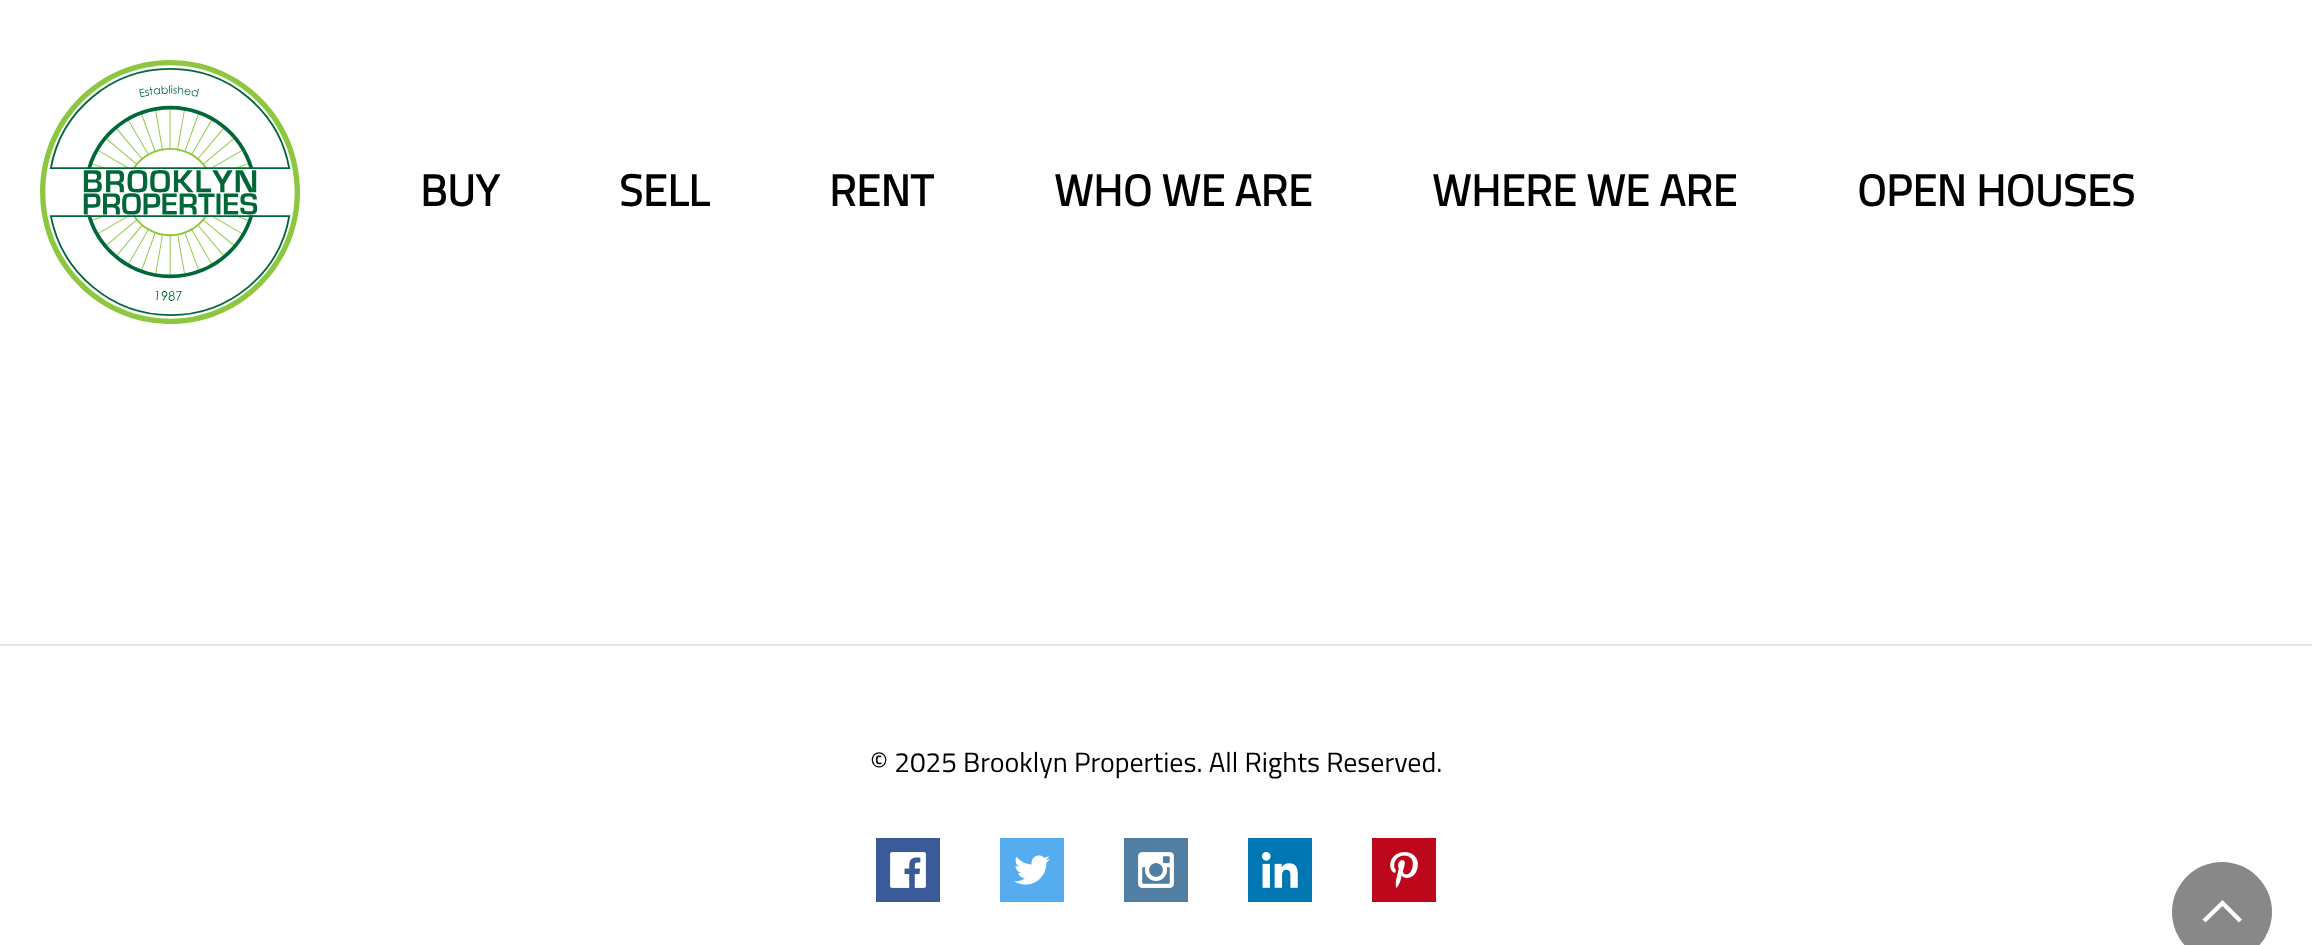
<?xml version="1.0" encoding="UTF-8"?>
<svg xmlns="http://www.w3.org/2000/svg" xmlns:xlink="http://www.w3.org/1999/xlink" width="2312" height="945">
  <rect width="100%" height="100%" fill="#ffffff" />
  <image x="40" y="60" width="260" height="264" xlink:href="image1.png" />
  <rect y="644" width="2312" height="2" fill="#e6e6e6" />
  <image x="876" y="838" width="64" height="64" xlink:href="image2.png" />
  <image x="1000" y="838" width="64" height="64" xlink:href="image3.png" />
  <image x="1124" y="838" width="64" height="64" xlink:href="image4.png" />
  <image x="1248" y="838" width="64" height="64" xlink:href="image5.png" />
  <image x="1372" y="838" width="64" height="64" xlink:href="image6.png" />
  <circle cx="2222" cy="912" r="50" fill="#888888" />
  <path d="M 2240.5 921 l -18 -18 l -18.5 18" fill="none" stroke="#ffffff" stroke-width="4.4" />
  <text x="420" y="206" style="font-family: Titillium Web; font-size: 44px; font-weight: bold; fill: #000000">BUY</text>
  <text x="619" y="206" style="font-family: Titillium Web; font-size: 44px; font-weight: bold; fill: #000000">SELL</text>
  <text x="829" y="206" style="font-family: Titillium Web; font-size: 44px; font-weight: bold; fill: #000000">RENT</text>
  <text x="1054" y="206" style="font-family: Titillium Web; font-size: 44px; font-weight: bold; fill: #000000">WHO WE ARE</text>
  <text x="1432" y="206" style="font-family: Titillium Web; font-size: 44px; font-weight: bold; fill: #000000">WHERE WE ARE</text>
  <text x="1857" y="206" style="font-family: Titillium Web; font-size: 44px; font-weight: bold; fill: #000000">OPEN HOUSES</text>
  <text x="870" y="772" style="font-family: Titillium Web; font-size: 28px; fill: #000000">© 2025 Brooklyn Properties. All Rights Reserved.</text>
</svg>
